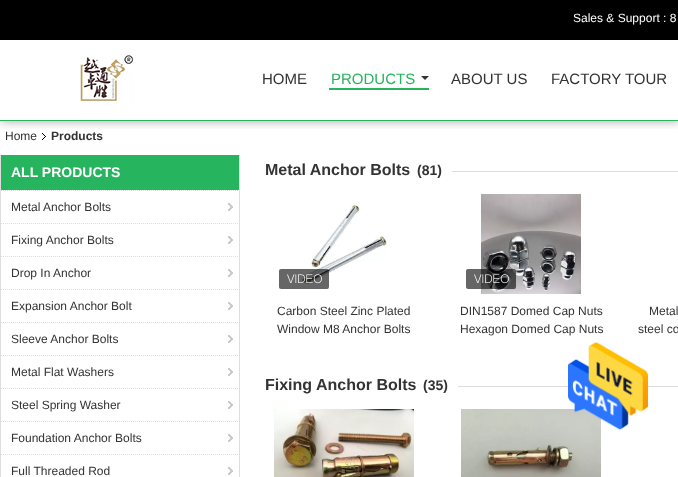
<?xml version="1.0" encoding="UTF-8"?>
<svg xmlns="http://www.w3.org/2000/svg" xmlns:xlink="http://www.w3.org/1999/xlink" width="678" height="477">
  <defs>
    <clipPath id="clip1"><rect x="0" y="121" width="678" height="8" /></clipPath>
  </defs>
  <rect width="100%" height="100%" fill="#ffffff" />
  <g clip-path="url(#clip1)">
    <rect x="1" y="1" width="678" height="121" fill="#000000" fill-opacity="0.3" filter="blur(5px)" />
  </g>
  <rect y="120" width="678" height="1" fill="#27b45f" />
  <rect width="678" height="40" fill="#000000" />
  <image x="80" y="55" width="54" height="51" xlink:href="image1.png" />
  <rect x="329" y="88" width="100" height="2" fill="#27b45f" />
  <path d="M 421 76 h 8 l -4 4 z" fill="#333333" />
  <image x="42" y="133" width="4" height="7" xlink:href="image2.png" />
  <rect x="239" y="155" width="1" height="322" fill="#dedede" />
  <rect y="155" width="1" height="322" fill="#dedede" />
  <rect x="1" y="155" width="238" height="35" fill="#27b45f" />
  <image x="228" y="203" width="5" height="8" xlink:href="image3.png" />
  <path d="M 1 190.5 h 240" fill="none" stroke="#dedede" stroke-dasharray="1 1" />
  <image x="228" y="236" width="5" height="8" xlink:href="image3.png" />
  <path d="M 1 223.5 h 240" fill="none" stroke="#dedede" stroke-dasharray="1 1" />
  <image x="228" y="269" width="5" height="8" xlink:href="image3.png" />
  <path d="M 1 256.5 h 240" fill="none" stroke="#dedede" stroke-dasharray="1 1" />
  <image x="228" y="302" width="5" height="8" xlink:href="image3.png" />
  <path d="M 1 289.5 h 240" fill="none" stroke="#dedede" stroke-dasharray="1 1" />
  <image x="228" y="335" width="5" height="8" xlink:href="image3.png" />
  <path d="M 1 322.5 h 240" fill="none" stroke="#dedede" stroke-dasharray="1 1" />
  <image x="228" y="368" width="5" height="8" xlink:href="image3.png" />
  <path d="M 1 355.5 h 240" fill="none" stroke="#dedede" stroke-dasharray="1 1" />
  <image x="228" y="401" width="5" height="8" xlink:href="image3.png" />
  <path d="M 1 388.5 h 240" fill="none" stroke="#dedede" stroke-dasharray="1 1" />
  <image x="228" y="434" width="5" height="8" xlink:href="image3.png" />
  <path d="M 1 421.5 h 240" fill="none" stroke="#dedede" stroke-dasharray="1 1" />
  <image x="228" y="467" width="5" height="8" xlink:href="image3.png" />
  <path d="M 1 454.5 h 240" fill="none" stroke="#dedede" stroke-dasharray="1 1" />
  <rect x="452" y="171" width="226" height="1" fill="#dddddd" />
  <image x="301" y="204" width="86" height="80" xlink:href="image4.png" />
  <image x="279" y="269" width="50" height="20" xlink:href="image5.png" />
  <image x="481" y="194" width="100" height="100" xlink:href="image6.png" />
  <image x="466" y="269" width="50" height="20" xlink:href="image7.png" />
  <rect x="458" y="386" width="220" height="1" fill="#dddddd" />
  <image x="274" y="409" width="140" height="68" xlink:href="image8.png" />
  <image x="461" y="409" width="140" height="68" xlink:href="image9.png" />
  <image x="568" y="342" width="80" height="88" xlink:href="image10.png" />
  <text x="573" y="22" style="font-family: Liberation Sans; font-size: 12px; fill: #ffffff">Sales &amp; Support : 8</text>
  <text x="262" y="84" style="font-family: Liberation Sans; font-size: 15px; fill: #333333">HOME</text>
  <text x="331" y="84" style="font-family: Liberation Sans; font-size: 15px; fill: #27b45f">PRODUCTS</text>
  <text x="451" y="84" style="font-family: Liberation Sans; font-size: 15px; fill: #333333">ABOUT US</text>
  <text x="551" y="84" style="font-family: Liberation Sans; font-size: 15px; fill: #333333">FACTORY TOUR</text>
  <text x="5" y="140" style="font-family: Liberation Sans; font-size: 12px; fill: #333333">Home</text>
  <text x="51" y="140" style="font-family: Liberation Sans; font-size: 12px; font-weight: bold; fill: #333333">Products</text>
  <text x="11" y="177" style="font-family: Liberation Sans; font-size: 14px; font-weight: bold; fill: #ffffff">ALL PRODUCTS</text>
  <text x="11" y="211" style="font-family: Liberation Sans; font-size: 12px; fill: #333333">Metal Anchor Bolts</text>
  <text x="11" y="244" style="font-family: Liberation Sans; font-size: 12px; fill: #333333">Fixing Anchor Bolts</text>
  <text x="11" y="277" style="font-family: Liberation Sans; font-size: 12px; fill: #333333">Drop In Anchor</text>
  <text x="11" y="310" style="font-family: Liberation Sans; font-size: 12px; fill: #333333">Expansion Anchor Bolt</text>
  <text x="11" y="343" style="font-family: Liberation Sans; font-size: 12px; fill: #333333">Sleeve Anchor Bolts</text>
  <text x="11" y="376" style="font-family: Liberation Sans; font-size: 12px; fill: #333333">Metal Flat Washers</text>
  <text x="11" y="409" style="font-family: Liberation Sans; font-size: 12px; fill: #333333">Steel Spring Washer</text>
  <text x="11" y="442" style="font-family: Liberation Sans; font-size: 12px; fill: #333333">Foundation Anchor Bolts</text>
  <text x="11" y="475" style="font-family: Liberation Sans; font-size: 12px; fill: #333333">Full Threaded Rod</text>
  <text x="265" y="175" style="font-family: Liberation Sans; font-size: 16px; font-weight: bold; fill: #333333">Metal Anchor Bolts</text>
  <text x="417" y="175" style="font-family: Liberation Sans; font-size: 14px; font-weight: bold; fill: #333333">(81)</text>
  <text x="277" y="315" style="font-family: Liberation Sans; font-size: 12px; fill: #333333">Carbon Steel Zinc Plated</text>
  <text x="277" y="333" style="font-family: Liberation Sans; font-size: 12px; fill: #333333">Window M8 Anchor Bolts</text>
  <text x="460" y="315" style="font-family: Liberation Sans; font-size: 12px; fill: #333333">DIN1587 Domed Cap Nuts</text>
  <text x="460" y="333" style="font-family: Liberation Sans; font-size: 12px; fill: #333333">Hexagon Domed Cap Nuts</text>
  <text x="649" y="315" style="font-family: Liberation Sans; font-size: 12px; fill: #333333">Metal</text>
  <text x="638" y="333" style="font-family: Liberation Sans; font-size: 12px; fill: #333333">steel co</text>
  <text x="265" y="390" style="font-family: Liberation Sans; font-size: 16px; font-weight: bold; fill: #333333">Fixing Anchor Bolts</text>
  <text x="423" y="390" style="font-family: Liberation Sans; font-size: 14px; font-weight: bold; fill: #333333">(35)</text>
</svg>
